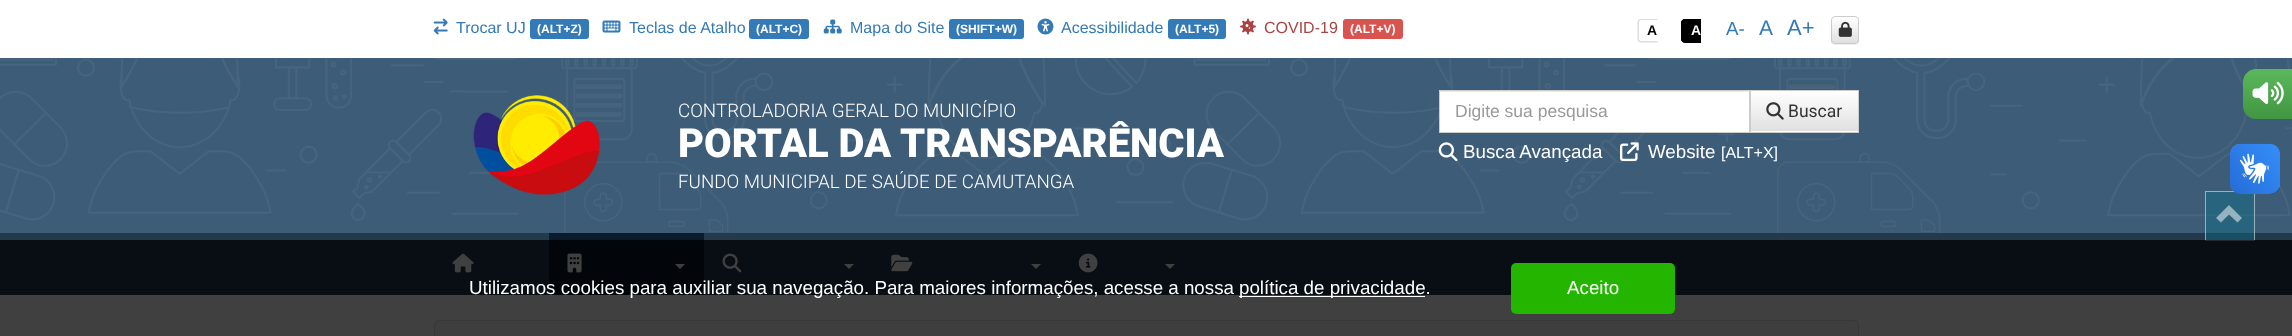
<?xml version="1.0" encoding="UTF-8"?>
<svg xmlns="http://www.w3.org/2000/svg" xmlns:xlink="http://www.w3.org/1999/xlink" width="2292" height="336">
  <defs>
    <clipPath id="clip1"><rect x="1831" y="16" width="28" height="28" rx="4" /></clipPath>
    <linearGradient id="g1" gradientUnits="userSpaceOnUse" x1="1845" y1="17" x2="1845" y2="43"><stop offset="0" stop-color="#ffffff" /><stop offset="1" stop-color="#e0e0e0" /></linearGradient>
    <linearGradient id="g2" gradientUnits="userSpaceOnUse" x1="1804" y1="91" x2="1804" y2="131"><stop offset="0" stop-color="#ffffff" /><stop offset="1" stop-color="#e0e0e0" /></linearGradient>
    <linearGradient id="g3" gradientUnits="userSpaceOnUse" x1="2268" y1="69" x2="2268" y2="119"><stop offset="0" stop-color="#5cb85c" /><stop offset="1" stop-color="#419641" /></linearGradient>
  </defs>
  <rect width="100%" height="100%" fill="#ffffff" />
  <image x="433" y="18" width="15" height="17" xlink:href="image1.png" />
  <rect x="530" y="19" width="59" height="20" rx="3" fill="#337ab7" />
  <image x="602" y="20" width="19" height="13" xlink:href="image2.png" />
  <rect x="749" y="19" width="60" height="20" rx="3" fill="#337ab7" />
  <image x="823" y="19" width="19" height="15" xlink:href="image3.png" />
  <rect x="949" y="19" width="75" height="20" rx="3" fill="#337ab7" />
  <image x="1037" y="18" width="17" height="17" xlink:href="image4.png" />
  <rect x="1168" y="19" width="58" height="20" rx="3" fill="#337ab7" />
  <image x="1240" y="18" width="16" height="17" xlink:href="image5.png" />
  <rect x="1343" y="19" width="60" height="20" rx="3" fill="#d9534f" />
  <path d="M 1641 19 h 16.5 v 23.5 h -16.5 c -2 0 -3.5 -1.5 -3.5 -3.5 v -16.5 c 0 -2 1.5 -3.5 3.5 -3.5 z m 0 1 h 16.5 v 21 h -16.5 c -1 0 -2 -1 -2 -2 v -16.5 c 0 -1.5 1 -2.5 2 -2.5 z" fill="#dddddd" fill-rule="evenodd" />
  <path d="M 1685 19 h 16 v 24 h -16 c -2 0 -4 -2 -4 -4 v -16 c 0 -2 2 -4 4 -4 z" fill="#000000" />
  <path d="M 1685 19 h 16 v 23.5 h -16 c -2 0 -4 -1.5 -4 -3.5 v -16.5 c 0 -2 2 -3.5 4 -3.5 z m 0 1 h 16 v 21 h -16 c -1.5 0 -2.5 -1 -2.5 -2 v -16.5 c 0 -1.5 1 -2.5 2.5 -2.5 z" fill="#000000" fill-rule="evenodd" />
  <rect x="1831" y="18" width="28" height="27" rx="4" fill="#000000" fill-opacity="0.07" filter="blur(0.5px)" />
  <rect x="1831" y="16" width="28" height="28" rx="4" fill="#ffffff" />
  <g clip-path="url(#clip1)">
    <rect x="1831" y="18" width="28" height="25" fill="url(#g1)" />
  </g>
  <rect x="1831.5" y="16.5" width="27" height="27" rx="3.5" fill="none" stroke="#cccccc" />
  <image x="1838" y="21" width="14" height="16" xlink:href="image6.png" />
  <rect y="58" width="2292" height="175" fill="#3d5c77" />
  <image x="0" y="58" width="2292" height="175" xlink:href="image7.png" />
  <image x="473" y="95" width="127" height="100" xlink:href="image8.png" />
  <rect x="1440" y="92" width="309" height="40" fill="#ffffff" />
  <rect x="1440" y="91" width="309" height="1" fill="#ececec" />
  <rect x="1439.5" y="90.5" width="310" height="42" fill="none" stroke="#cccccc" />
  <rect x="1751" y="131" width="107" height="1" fill="#ffffff" />
  <rect x="1751" y="91" width="107" height="40" fill="url(#g2)" />
  <rect x="1750.5" y="90.5" width="108" height="42" fill="none" stroke="#cccccc" />
  <image x="1766" y="102" width="18" height="18" xlink:href="image9.png" />
  <image x="1438" y="142" width="20" height="20" xlink:href="image10.png" />
  <image x="1620" y="142" width="19" height="20" xlink:href="image11.png" />
  <rect y="233" width="2292" height="62" fill="#23394c" />
  <image x="452" y="253" width="22" height="20" xlink:href="image12.png" />
  <rect x="549" y="233" width="155" height="62" fill="#0a1b2b" />
  <image x="567" y="253" width="15" height="20" xlink:href="image13.png" />
  <path d="M 675 264 h 10 l -5 5 z" fill="#ffffff" />
  <image x="722" y="253" width="20" height="20" xlink:href="image14.png" />
  <path d="M 844 264 h 10 l -5 5 z" fill="#ffffff" />
  <image x="891" y="254" width="22" height="18" xlink:href="image15.png" />
  <path d="M 1031 264 h 10 l -5 5 z" fill="#ffffff" />
  <image x="1078" y="253" width="20" height="20" xlink:href="image16.png" />
  <path d="M 1165 264 h 10 l -5 5 z" fill="#ffffff" />
  <path d="M 2256 69 h 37 v 50 h -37 c -7 0 -13 -6 -13 -13 v -24 c 0 -7 6 -13 13 -13 z" fill="url(#g3)" />
  <image x="2252" y="81" width="32" height="24" xlink:href="image17.png" />
  <rect x="2205" y="191" width="50" height="50" fill="#097189" fill-opacity="0.4" />
  <rect x="2205.5" y="191.5" width="49" height="49" fill="none" stroke="#ffffff" stroke-opacity="0.5" />
  <path d="M 2242 218 l -4.5 4.5 l -8.5 -8 l -8 8 l -5 -4.5 l 13 -13 z" fill="#ffffff" fill-opacity="0.5" />
  <image x="2230" y="143" width="50" height="51" xlink:href="image18.png" />
  <image x="2230" y="144" width="50" height="50" xlink:href="image19.png" />
  <rect x="434.5" y="320.5" width="1424" height="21" rx="4.5" fill="#f5f5f5" stroke="#dddddd" />
  <rect y="240" width="2292" height="96" fill="#000000" fill-opacity="0.75" />
  <rect x="1239" y="296" width="186" height="1" fill="#ffffff" />
  <rect x="1511" y="263" width="164" height="51" rx="5" fill="#23b500" />
  <text x="456" y="33" style="font-family: Liberation Sans; font-size: 16px; fill: #337ab7">Trocar UJ</text>
  <text x="537" y="33" style="font-family: Liberation Sans; font-size: 12px; font-weight: bold; fill: #ffffff">(ALT+Z)</text>
  <text x="629" y="33" style="font-family: Liberation Sans; font-size: 16px; fill: #337ab7">Teclas de Atalho</text>
  <text x="756" y="33" style="font-family: Liberation Sans; font-size: 12px; font-weight: bold; fill: #ffffff">(ALT+C)</text>
  <text x="850" y="33" style="font-family: Liberation Sans; font-size: 16px; fill: #337ab7">Mapa do Site</text>
  <text x="956" y="33" style="font-family: Liberation Sans; font-size: 12px; font-weight: bold; fill: #ffffff">(SHIFT+W)</text>
  <text x="1061" y="33" style="font-family: Liberation Sans; font-size: 16px; fill: #337ab7">Acessibilidade</text>
  <text x="1175" y="33" style="font-family: Liberation Sans; font-size: 12px; font-weight: bold; fill: #ffffff">(ALT+5)</text>
  <text x="1264" y="33" style="font-family: Liberation Sans; font-size: 16px; fill: #a94442">COVID-19</text>
  <text x="1350" y="33" style="font-family: Liberation Sans; font-size: 12px; font-weight: bold; fill: #ffffff">(ALT+V)</text>
  <text x="1647" y="35" style="font-family: Liberation Sans; font-size: 14px; font-weight: bold; fill: #000000">A</text>
  <text x="1691" y="35" style="font-family: Liberation Sans; font-size: 14px; font-weight: bold; fill: #ffffff">A</text>
  <text x="1726" y="35" style="font-family: Liberation Sans; font-size: 18.75px; fill: #337ab7">A-</text>
  <text x="1759" y="35" style="font-family: Liberation Sans; font-size: 21px; fill: #337ab7">A</text>
  <text x="1787" y="35" style="font-family: Liberation Sans; font-size: 22px; fill: #337ab7">A+</text>
  <text x="678" y="117" style="font-family: Roboto; font-size: 18.75px; font-weight: 300; fill: #ffffff">CONTROLADORIA GERAL DO MUNICÍPIO</text>
  <text x="678" y="157" style="font-family: Roboto; font-size: 40px; font-weight: 900; fill: #ffffff">PORTAL DA TRANSPARÊNCIA</text>
  <text x="678" y="188" style="font-family: Roboto; font-size: 18.75px; font-weight: 300; fill: #ffffff">FUNDO MUNICIPAL DE SAÚDE DE CAMUTANGA</text>
  <text x="1455" y="117" style="font-family: Liberation Sans; font-size: 17.5px; fill: #999999">Digite sua pesquisa</text>
  <text x="1788" y="117" style="font-family: Roboto; font-size: 17.5px; fill: #333333">Buscar</text>
  <text x="1463" y="158" style="font-family: Liberation Sans; font-size: 18.75px; fill: #ffffff">Busca Avançada</text>
  <text x="1648" y="158" style="font-family: Liberation Sans; font-size: 18.75px; fill: #ffffff">Website</text>
  <text x="1721" y="158" style="font-family: Liberation Sans; font-size: 16px; fill: #ffffff">[ALT+X]</text>
  <text x="469" y="294" style="font-family: Liberation Sans; font-size: 18.75px; fill: #ffffff">Utilizamos cookies para auxiliar sua navegação. Para maiores informações, acesse a nossa</text>
  <text x="1239" y="294" style="font-family: Liberation Sans; font-size: 18.75px; fill: #ffffff">política de privacidade.</text>
  <text x="1567" y="294" style="font-family: Liberation Sans; font-size: 18.75px; fill: #ffffff">Aceito</text>
</svg>
